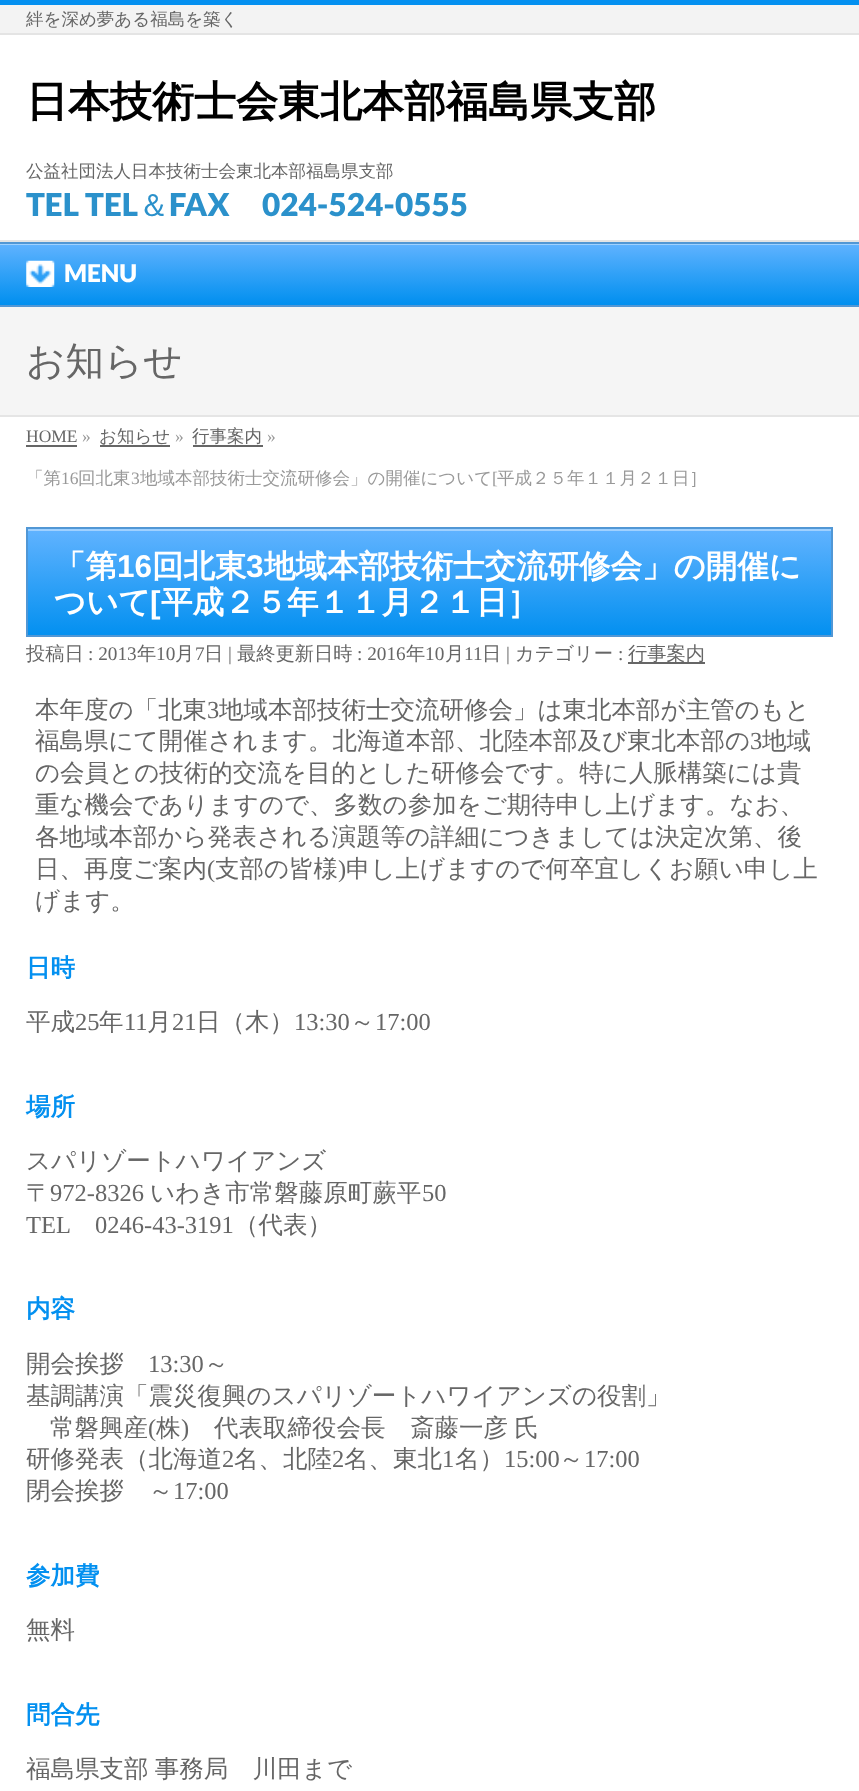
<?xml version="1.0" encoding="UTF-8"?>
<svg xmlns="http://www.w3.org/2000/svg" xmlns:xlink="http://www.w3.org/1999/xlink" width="859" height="1791">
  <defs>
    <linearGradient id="g1" gradientUnits="userSpaceOnUse" x1="430" y1="243" x2="430" y2="305"><stop offset="0" stop-color="#61b3ff" /><stop offset="1" stop-color="#008fef" /></linearGradient>
    <linearGradient id="g2" gradientUnits="userSpaceOnUse" x1="430" y1="529" x2="430" y2="635"><stop offset="0" stop-color="#61b3ff" /><stop offset="1" stop-color="#0390f0" /></linearGradient>
  </defs>
  <rect width="100%" height="100%" fill="#ffffff" />
  <rect y="5" width="859" height="28" fill="#f3f3f3" />
  <rect width="859" height="5" fill="#0490f0" />
  <rect y="33" width="859" height="2" fill="#e4e4e4" />
  <rect y="240" width="859" height="2" fill="#e4e4e4" />
  <rect y="245" width="859" height="60" fill="url(#g1)" />
  <rect y="244" width="859" height="1" fill="#9fd1ff" />
  <rect y="242" width="859" height="2" fill="#5197d5" />
  <rect y="305" width="859" height="2" fill="#5197d5" />
  <image x="26" y="260" width="29" height="27" xlink:href="image1.png" />
  <rect y="307" width="859" height="108" fill="#f5f5f5" />
  <rect y="415" width="859" height="2" fill="#e5e5e5" />
  <rect x="26" y="445" width="51" height="2" fill="#666666" />
  <rect x="100" y="445" width="70" height="2" fill="#666666" />
  <rect x="193" y="445" width="70" height="2" fill="#666666" />
  <rect x="28" y="531" width="803" height="104" fill="url(#g2)" />
  <rect x="28" y="529" width="803" height="2" fill="#a0d1ff" />
  <rect x="27" y="528" width="805" height="108" fill="none" stroke="#5197d5" stroke-width="2" />
  <rect x="628" y="662" width="77" height="2" fill="#666666" />
  <text x="26" y="25" style="font-family: WenQuanYi Zen Hei; font-size: 17.5px; font-weight: 500; fill: #666666">絆を深め夢ある福島を築く</text>
  <text x="26" y="116" style="font-family: WenQuanYi Zen Hei; font-size: 42px; font-weight: bold; fill: #000000">日本技術士会東北本部福島県支部</text>
  <text x="26" y="177" style="font-family: WenQuanYi Zen Hei; font-size: 17.5px; font-weight: 500; fill: #666666">公益社団法人日本技術士会東北本部福島県支部</text>
  <text x="26" y="216" style="font-family: Lato; font-size: 31.5px; font-weight: 900; fill: #2b91cb">TEL TEL</text>
  <text x="138" y="216" style="font-family: WenQuanYi Zen Hei; font-size: 31.5px; font-weight: 500; fill: #2b91cb">＆</text>
  <text x="169" y="216" style="font-family: Lato; font-size: 31.5px; font-weight: 900; fill: #2b91cb">FAX</text>
  <text x="262" y="216" style="font-family: Lato; font-size: 31.5px; font-weight: 900; fill: #2b91cb">024-524-0555</text>
  <text x="64" y="282" style="font-family: Lato; font-size: 24.5px; font-weight: 900; fill: #ffffff">MENU</text>
  <text x="26" y="374" style="font-family: WenQuanYi Zen Hei; font-size: 38.5px; font-weight: 500; fill: #666666">お知らせ</text>
  <text x="26" y="442" style="font-family: Liberation Serif; font-size: 17.5px; fill: #666666">HOME</text>
  <text x="82" y="442" style="font-family: Liberation Serif; font-size: 17.5px; fill: #999999">»</text>
  <text x="99" y="442" style="font-family: WenQuanYi Zen Hei; font-size: 17.5px; font-weight: 500; fill: #666666">お知らせ</text>
  <text x="175" y="442" style="font-family: Liberation Serif; font-size: 17.5px; fill: #999999">»</text>
  <text x="192" y="442" style="font-family: WenQuanYi Zen Hei; font-size: 17.5px; font-weight: 500; fill: #666666">行事案内</text>
  <text x="267" y="442" style="font-family: Liberation Serif; font-size: 17.5px; fill: #999999">»</text>
  <text x="26" y="484" style="font-family: WenQuanYi Zen Hei; font-size: 17.5px; font-weight: 500; fill: #999999">「第</text>
  <text x="61" y="484" style="font-family: Liberation Serif; font-size: 17.5px; fill: #999999">16</text>
  <text x="78" y="484" style="font-family: WenQuanYi Zen Hei; font-size: 17.5px; font-weight: 500; fill: #999999">回北東</text>
  <text x="131" y="484" style="font-family: Liberation Serif; font-size: 17.5px; fill: #999999">3</text>
  <text x="140" y="484" style="font-family: WenQuanYi Zen Hei; font-size: 17.5px; font-weight: 500; fill: #999999">地域本部技術士交流研修会」の開催について</text>
  <text x="492" y="484" style="font-family: Liberation Serif; font-size: 17.5px; fill: #999999">[</text>
  <text x="497" y="484" style="font-family: WenQuanYi Zen Hei; font-size: 17.5px; font-weight: 500; fill: #999999">平成２５年１１月２１日］</text>
  <text x="54" y="577" style="font-family: WenQuanYi Zen Hei; font-size: 31.5px; font-weight: bold; fill: #ffffff">「第</text>
  <text x="117" y="577" style="font-family: Liberation Sans; font-size: 31.5px; font-weight: bold; fill: #ffffff">16</text>
  <text x="152" y="577" style="font-family: WenQuanYi Zen Hei; font-size: 31.5px; font-weight: bold; fill: #ffffff">回北東</text>
  <text x="246" y="577" style="font-family: Liberation Sans; font-size: 31.5px; font-weight: bold; fill: #ffffff">3</text>
  <text x="264" y="577" style="font-family: WenQuanYi Zen Hei; font-size: 31.5px; font-weight: bold; fill: #ffffff">地域本部技術士交流研修会」の開催に</text>
  <text x="54" y="613" style="font-family: WenQuanYi Zen Hei; font-size: 31.5px; font-weight: bold; fill: #ffffff">ついて</text>
  <text x="150" y="613" style="font-family: Liberation Sans; font-size: 31.5px; font-weight: bold; fill: #ffffff">[</text>
  <text x="161" y="613" style="font-family: WenQuanYi Zen Hei; font-size: 31.5px; font-weight: bold; fill: #ffffff">平成２５年１１月２１日］</text>
  <text x="26" y="660" style="font-family: WenQuanYi Zen Hei; font-size: 19.25px; font-weight: 500; fill: #666666">投稿日</text>
  <text x="88" y="660" style="font-family: Liberation Serif; font-size: 19.25px; fill: #666666">: 2013</text>
  <text x="137" y="660" style="font-family: WenQuanYi Zen Hei; font-size: 19.25px; font-weight: 500; fill: #666666">年</text>
  <text x="156" y="660" style="font-family: Liberation Serif; font-size: 19.25px; fill: #666666">10</text>
  <text x="175" y="660" style="font-family: WenQuanYi Zen Hei; font-size: 19.25px; font-weight: 500; fill: #666666">月</text>
  <text x="195" y="660" style="font-family: Liberation Serif; font-size: 19.25px; fill: #666666">7</text>
  <text x="204" y="660" style="font-family: WenQuanYi Zen Hei; font-size: 19.25px; font-weight: 500; fill: #666666">日</text>
  <text x="228" y="660" style="font-family: Liberation Serif; font-size: 19.25px; fill: #666666">|</text>
  <text x="237" y="660" style="font-family: WenQuanYi Zen Hei; font-size: 19.25px; font-weight: 500; fill: #666666">最終更新日時</text>
  <text x="357" y="660" style="font-family: Liberation Serif; font-size: 19.25px; fill: #666666">: 2016</text>
  <text x="406" y="660" style="font-family: WenQuanYi Zen Hei; font-size: 19.25px; font-weight: 500; fill: #666666">年</text>
  <text x="425" y="660" style="font-family: Liberation Serif; font-size: 19.25px; fill: #666666">10</text>
  <text x="445" y="660" style="font-family: WenQuanYi Zen Hei; font-size: 19.25px; font-weight: 500; fill: #666666">月</text>
  <text x="464" y="660" style="font-family: Liberation Serif; font-size: 19.25px; fill: #666666">11</text>
  <text x="482" y="660" style="font-family: WenQuanYi Zen Hei; font-size: 19.25px; font-weight: 500; fill: #666666">日</text>
  <text x="506" y="660" style="font-family: Liberation Serif; font-size: 19.25px; fill: #666666">|</text>
  <text x="515" y="660" style="font-family: WenQuanYi Zen Hei; font-size: 19.25px; font-weight: 500; fill: #666666">カテゴリー</text>
  <text x="618" y="660" style="font-family: Liberation Serif; font-size: 19.25px; fill: #666666">:</text>
  <text x="628" y="660" style="font-family: WenQuanYi Zen Hei; font-size: 19.25px; font-weight: 500; fill: #666666">行事案内</text>
  <text x="35" y="718" style="font-family: WenQuanYi Zen Hei; font-size: 24.5px; font-weight: 500; fill: #666666">本年度の「北東</text>
  <text x="207" y="718" style="font-family: Liberation Serif; font-size: 24.5px; fill: #666666">3</text>
  <text x="219" y="718" style="font-family: WenQuanYi Zen Hei; font-size: 24.5px; font-weight: 500; fill: #666666">地域本部技術士交流研修会」は東北本部が主管のもと</text>
  <text x="35" y="749" style="font-family: WenQuanYi Zen Hei; font-size: 24.5px; font-weight: 500; fill: #666666">福島県にて開催されます。北海道本部、北陸本部及び東北本部の</text>
  <text x="750" y="749" style="font-family: Liberation Serif; font-size: 24.5px; fill: #666666">3</text>
  <text x="762" y="749" style="font-family: WenQuanYi Zen Hei; font-size: 24.5px; font-weight: 500; fill: #666666">地域</text>
  <text x="35" y="781" style="font-family: WenQuanYi Zen Hei; font-size: 24.5px; font-weight: 500; fill: #666666">の会員との技術的交流を目的とした研修会です。特に人脈構築には貴</text>
  <text x="35" y="813" style="font-family: WenQuanYi Zen Hei; font-size: 24.5px; font-weight: 500; fill: #666666">重な機会でありますので、多数の参加をご期待申し上げます。なお、</text>
  <text x="35" y="845" style="font-family: WenQuanYi Zen Hei; font-size: 24.5px; font-weight: 500; fill: #666666">各地域本部から発表される演題等の詳細につきましては決定次第、後</text>
  <text x="35" y="877" style="font-family: WenQuanYi Zen Hei; font-size: 24.5px; font-weight: 500; fill: #666666">日、再度ご案内</text>
  <text x="207" y="877" style="font-family: Liberation Serif; font-size: 24.5px; fill: #666666">(</text>
  <text x="215" y="877" style="font-family: WenQuanYi Zen Hei; font-size: 24.5px; font-weight: 500; fill: #666666">支部の皆様</text>
  <text x="338" y="877" style="font-family: Liberation Serif; font-size: 24.5px; fill: #666666">)</text>
  <text x="346" y="877" style="font-family: WenQuanYi Zen Hei; font-size: 24.5px; font-weight: 500; fill: #666666">申し上げますので何卒宜しくお願い申し上</text>
  <text x="35" y="909" style="font-family: WenQuanYi Zen Hei; font-size: 24.5px; font-weight: 500; fill: #666666">げます。</text>
  <text x="26" y="976" style="font-family: WenQuanYi Zen Hei; font-size: 24.5px; font-weight: bold; fill: #0390f0">日時</text>
  <text x="26" y="1030" style="font-family: WenQuanYi Zen Hei; font-size: 24.5px; font-weight: 500; fill: #666666">平成</text>
  <text x="75" y="1030" style="font-family: Liberation Serif; font-size: 24.5px; fill: #666666">25</text>
  <text x="99" y="1030" style="font-family: WenQuanYi Zen Hei; font-size: 24.5px; font-weight: 500; fill: #666666">年</text>
  <text x="124" y="1030" style="font-family: Liberation Serif; font-size: 24.5px; fill: #666666">11</text>
  <text x="147" y="1030" style="font-family: WenQuanYi Zen Hei; font-size: 24.5px; font-weight: 500; fill: #666666">月</text>
  <text x="172" y="1030" style="font-family: Liberation Serif; font-size: 24.5px; fill: #666666">21</text>
  <text x="196" y="1030" style="font-family: WenQuanYi Zen Hei; font-size: 24.5px; font-weight: 500; fill: #666666">日（木）</text>
  <text x="294" y="1030" style="font-family: Liberation Serif; font-size: 24.5px; fill: #666666">13:30</text>
  <text x="350" y="1030" style="font-family: WenQuanYi Zen Hei; font-size: 24.5px; font-weight: 500; fill: #666666">～</text>
  <text x="375" y="1030" style="font-family: Liberation Serif; font-size: 24.5px; fill: #666666">17:00</text>
  <text x="26" y="1115" style="font-family: WenQuanYi Zen Hei; font-size: 24.5px; font-weight: bold; fill: #0390f0">場所</text>
  <text x="26" y="1169" style="font-family: WenQuanYi Zen Hei; font-size: 24.5px; font-weight: 500; fill: #666666">スパリゾートハワイアンズ</text>
  <text x="26" y="1201" style="font-family: WenQuanYi Zen Hei; font-size: 24.5px; font-weight: 500; fill: #666666">〒</text>
  <text x="50" y="1201" style="font-family: Liberation Serif; font-size: 24.5px; fill: #666666">972-8326</text>
  <text x="150" y="1201" style="font-family: WenQuanYi Zen Hei; font-size: 24.5px; font-weight: 500; fill: #666666">いわき市常磐藤原町蕨平</text>
  <text x="422" y="1201" style="font-family: Liberation Serif; font-size: 24.5px; fill: #666666">50</text>
  <text x="26" y="1233" style="font-family: Liberation Serif; font-size: 24.5px; fill: #666666">TEL</text>
  <text x="95" y="1233" style="font-family: Liberation Serif; font-size: 24.5px; fill: #666666">0246-43-3191</text>
  <text x="234" y="1233" style="font-family: WenQuanYi Zen Hei; font-size: 24.5px; font-weight: 500; fill: #666666">（代表）</text>
  <text x="26" y="1317" style="font-family: WenQuanYi Zen Hei; font-size: 24.5px; font-weight: bold; fill: #0390f0">内容</text>
  <text x="26" y="1372" style="font-family: WenQuanYi Zen Hei; font-size: 24.5px; font-weight: 500; fill: #666666">開会挨拶</text>
  <text x="148" y="1372" style="font-family: Liberation Serif; font-size: 24.5px; fill: #666666">13:30</text>
  <text x="204" y="1372" style="font-family: WenQuanYi Zen Hei; font-size: 24.5px; font-weight: 500; fill: #666666">～</text>
  <text x="26" y="1404" style="font-family: WenQuanYi Zen Hei; font-size: 24.5px; font-weight: 500; fill: #666666">基調講演「震災復興のスパリゾートハワイアンズの役割」</text>
  <text x="50" y="1436" style="font-family: WenQuanYi Zen Hei; font-size: 24.5px; font-weight: 500; fill: #666666">常磐興産</text>
  <text x="148" y="1436" style="font-family: Liberation Serif; font-size: 24.5px; fill: #666666">(</text>
  <text x="156" y="1436" style="font-family: WenQuanYi Zen Hei; font-size: 24.5px; font-weight: 500; fill: #666666">株</text>
  <text x="181" y="1436" style="font-family: Liberation Serif; font-size: 24.5px; fill: #666666">)</text>
  <text x="214" y="1436" word-spacing="-1" style="font-family: WenQuanYi Zen Hei; font-size: 24.5px; font-weight: 500; fill: #666666">代表取締役会長　斎藤一彦 氏</text>
  <text x="26" y="1467" style="font-family: WenQuanYi Zen Hei; font-size: 24.5px; font-weight: 500; fill: #666666">研修発表（北海道</text>
  <text x="222" y="1467" style="font-family: Liberation Serif; font-size: 24.5px; fill: #666666">2</text>
  <text x="234" y="1467" style="font-family: WenQuanYi Zen Hei; font-size: 24.5px; font-weight: 500; fill: #666666">名、北陸</text>
  <text x="332" y="1467" style="font-family: Liberation Serif; font-size: 24.5px; fill: #666666">2</text>
  <text x="344" y="1467" style="font-family: WenQuanYi Zen Hei; font-size: 24.5px; font-weight: 500; fill: #666666">名、東北</text>
  <text x="442" y="1467" style="font-family: Liberation Serif; font-size: 24.5px; fill: #666666">1</text>
  <text x="455" y="1467" style="font-family: WenQuanYi Zen Hei; font-size: 24.5px; font-weight: 500; fill: #666666">名）</text>
  <text x="504" y="1467" style="font-family: Liberation Serif; font-size: 24.5px; fill: #666666">15:00</text>
  <text x="559" y="1467" style="font-family: WenQuanYi Zen Hei; font-size: 24.5px; font-weight: 500; fill: #666666">～</text>
  <text x="584" y="1467" style="font-family: Liberation Serif; font-size: 24.5px; fill: #666666">17:00</text>
  <text x="26" y="1499" style="font-family: WenQuanYi Zen Hei; font-size: 24.5px; font-weight: 500; fill: #666666">閉会挨拶　～</text>
  <text x="173" y="1499" style="font-family: Liberation Serif; font-size: 24.5px; fill: #666666">17:00</text>
  <text x="26" y="1584" style="font-family: WenQuanYi Zen Hei; font-size: 24.5px; font-weight: bold; fill: #0390f0">参加費</text>
  <text x="26" y="1638" style="font-family: WenQuanYi Zen Hei; font-size: 24.5px; font-weight: 500; fill: #666666">無料</text>
  <text x="26" y="1723" style="font-family: WenQuanYi Zen Hei; font-size: 24.5px; font-weight: bold; fill: #0390f0">問合先</text>
  <text x="26" y="1777" word-spacing="-1" style="font-family: WenQuanYi Zen Hei; font-size: 24.5px; font-weight: 500; fill: #666666">福島県支部 事務局　川田まで</text>
</svg>
